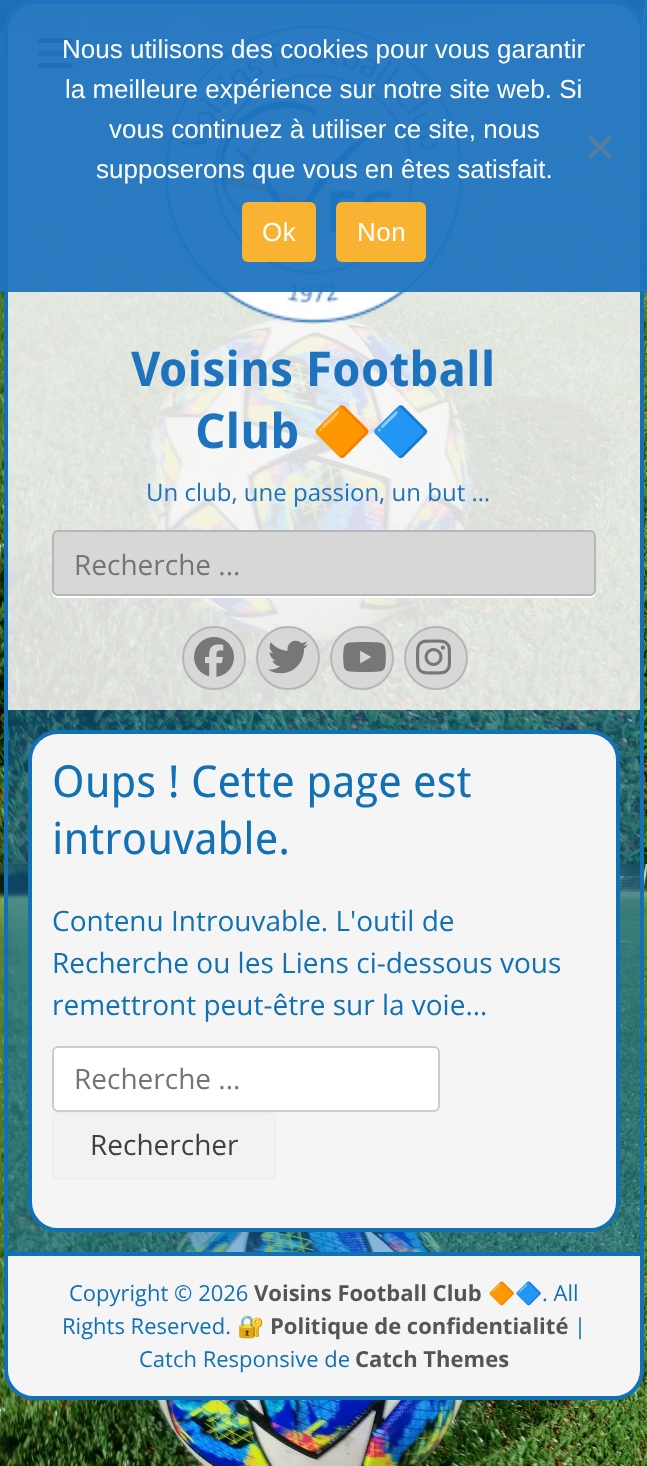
<?xml version="1.0" encoding="UTF-8"?>
<svg xmlns="http://www.w3.org/2000/svg" xmlns:xlink="http://www.w3.org/1999/xlink" width="647" height="1466">
  <rect width="100%" height="100%" fill="#ffffff" />
  <image x="0" y="0" width="647" height="1466" xlink:href="image1.png" />
  <path d="M 34 4 h 580 c 14.5 0 26 11.5 26 26 v 680 h -632 v -680 c 0 -14.5 11.5 -26 26 -26 z" fill="#f5f5f5" fill-opacity="0.89" />
  <path d="M 34 0 h 580 c 17 0 30 13 30 30 v 680 h -640 v -680 c 0 -17 13 -30 30 -30 z m 0 4 h 580 c 14 0 26 12 26 26 v 680 h -632 v -680 c 0 -14 12 -26 26 -26 z" fill="#1171b4" fill-rule="evenodd" />
  <image x="38" y="38" width="35" height="30" xlink:href="image2.png" />
  <image x="164" y="24" width="300" height="300" xlink:href="image3.png" />
  <rect width="647" height="292" fill="#1e73be" fill-opacity="0.94" />
  <path d="M 609 135 l 3 3 l -21 21 l -3 -3 z" fill="#557da0" />
  <path d="M 588 138 l 3 -3 l 21 21 l -3 3 z" fill="#557da0" />
  <rect x="242" y="202" width="74" height="60" rx="6" fill="#f8b333" />
  <rect x="336" y="202" width="90" height="60" rx="6" fill="#f8b333" />
  <path d="M 52 590 v 2 c 0 3 3 6 6 6 h 532 c 3 0 6 -3 6 -6 v -2 c 0 3 -3 6 -6 6 h -532 c -3 0 -6 -3 -6 -6 z" fill="#ffffff" />
  <rect x="53" y="531" width="542" height="64" rx="5" fill="#d7d7d7" stroke="#b6b6b6" stroke-width="2" />
  <circle cx="214" cy="658" r="31" fill="#d7d7d7" stroke="#b6b6b6" stroke-width="2" />
  <image x="194" y="637" width="40" height="40" xlink:href="image4.png" />
  <circle cx="288" cy="658" r="31" fill="#d7d7d7" stroke="#b6b6b6" stroke-width="2" />
  <image x="268" y="640" width="40" height="34" xlink:href="image5.png" />
  <circle cx="362" cy="658" r="31" fill="#d7d7d7" stroke="#b6b6b6" stroke-width="2" />
  <image x="343" y="642" width="43" height="30" xlink:href="image6.png" />
  <circle cx="436" cy="658" r="31" fill="#d7d7d7" stroke="#b6b6b6" stroke-width="2" />
  <image x="416" y="639" width="35" height="36" xlink:href="image7.png" />
  <rect x="8" y="710" width="632" height="542" fill="#1171b4" fill-opacity="0.5" />
  <rect x="640" y="710" width="4" height="542" fill="#1171b4" />
  <rect x="4" y="710" width="4" height="542" fill="#1171b4" />
  <rect x="30" y="732" width="588" height="498" rx="28" fill="#f5f5f5" stroke="#1171b4" stroke-width="4" />
  <rect x="53" y="1047" width="386" height="64" rx="5" fill="#ffffff" stroke="#cccccc" stroke-width="2" />
  <rect x="53" y="1113" width="222" height="66" rx="5" fill="#f2f2f2" stroke="#eeeeee" stroke-width="2" />
  <path d="M 6 1254 h 636 v 116 c 0 15.5 -12.5 28 -28 28 h -580 c -15.5 0 -28 -12.5 -28 -28 z" fill="#f5f5f5" stroke="#1171b4" stroke-width="4" />
  <text x="62" y="58" style="font-family: Liberation Sans; font-size: 26px; fill: #ffffff">Nous utilisons des cookies pour vous garantir</text>
  <text x="65" y="98" style="font-family: Liberation Sans; font-size: 26px; fill: #ffffff">la meilleure expérience sur notre site web. Si</text>
  <text x="109" y="138" style="font-family: Liberation Sans; font-size: 26px; fill: #ffffff">vous continuez à utiliser ce site, nous</text>
  <text x="96" y="178" style="font-family: Liberation Sans; font-size: 26px; fill: #ffffff">supposerons que vous en êtes satisfait.</text>
  <text x="262" y="241" style="font-family: Liberation Sans; font-size: 26px; letter-spacing: 0.5px; fill: #ffffff">Ok</text>
  <text x="357" y="241" style="font-family: Liberation Sans; font-size: 26px; letter-spacing: 0.5px; fill: #ffffff">Non</text>
  <text x="131" y="386" style="font-family: Droid Sans; font-size: 48px; font-weight: bold; fill: #1e73be">Voisins Football</text>
  <text x="195" y="448" style="font-family: Droid Sans; font-size: 48px; font-weight: bold; fill: #1e73be">Club</text>
  <text x="312" y="448" style="font-family: Noto Color Emoji; font-size: 48px; font-weight: bold; fill: #1e73be">🔶🔷</text>
  <text x="146" y="501" style="font-family: Open Sans; font-size: 24px; fill: #1e73be">Un club, une passion, un but …</text>
  <text x="74" y="575" style="font-family: Open Sans; font-size: 28px; fill: #757575">Recherche ...</text>
  <text x="52" y="797" style="font-family: Droid Sans; font-size: 44px; fill: #1171b4">Oups ! Cette page est</text>
  <text x="52" y="854" style="font-family: Droid Sans; font-size: 44px; fill: #1171b4">introuvable.</text>
  <text x="52" y="931" style="font-family: Open Sans; font-size: 28px; fill: #1171b4">Contenu Introuvable. L'outil de</text>
  <text x="52" y="973" style="font-family: Open Sans; font-size: 28px; fill: #1171b4">Recherche ou les Liens ci-dessous vous</text>
  <text x="52" y="1015" style="font-family: Open Sans; font-size: 28px; fill: #1171b4">remettront peut-être sur la voie…</text>
  <text x="74" y="1089" style="font-family: Open Sans; font-size: 28px; fill: #757575">Recherche ...</text>
  <text x="90" y="1155" style="font-family: Open Sans; font-size: 28px; fill: #404040">Rechercher</text>
  <text x="69" y="1301" style="font-family: Open Sans; font-size: 22px; fill: #1171b4">Copyright © 2026</text>
  <text x="254" y="1301" style="font-family: Open Sans; font-size: 22px; font-weight: bold; fill: #555555">Voisins Football Club</text>
  <text x="488" y="1301" style="font-family: Noto Color Emoji; font-size: 22px; font-weight: bold; fill: #555555">🔶🔷</text>
  <text x="542" y="1301" style="font-family: Open Sans; font-size: 22px; fill: #1171b4">. All</text>
  <text x="62" y="1334" style="font-family: Open Sans; font-size: 22px; fill: #1171b4">Rights Reserved.</text>
  <text x="237" y="1334" style="font-family: Noto Color Emoji; font-size: 22px; font-weight: bold; fill: #555555">🔐</text>
  <text x="270" y="1334" style="font-family: Open Sans; font-size: 22px; font-weight: bold; fill: #555555">Politique de confidentialité</text>
  <text x="574" y="1334" style="font-family: Open Sans; font-size: 22px; fill: #1171b4">|</text>
  <text x="139" y="1367" style="font-family: Open Sans; font-size: 22px; fill: #1171b4">Catch Responsive de</text>
  <text x="355" y="1367" style="font-family: Open Sans; font-size: 22px; font-weight: bold; fill: #555555">Catch Themes</text>
</svg>
